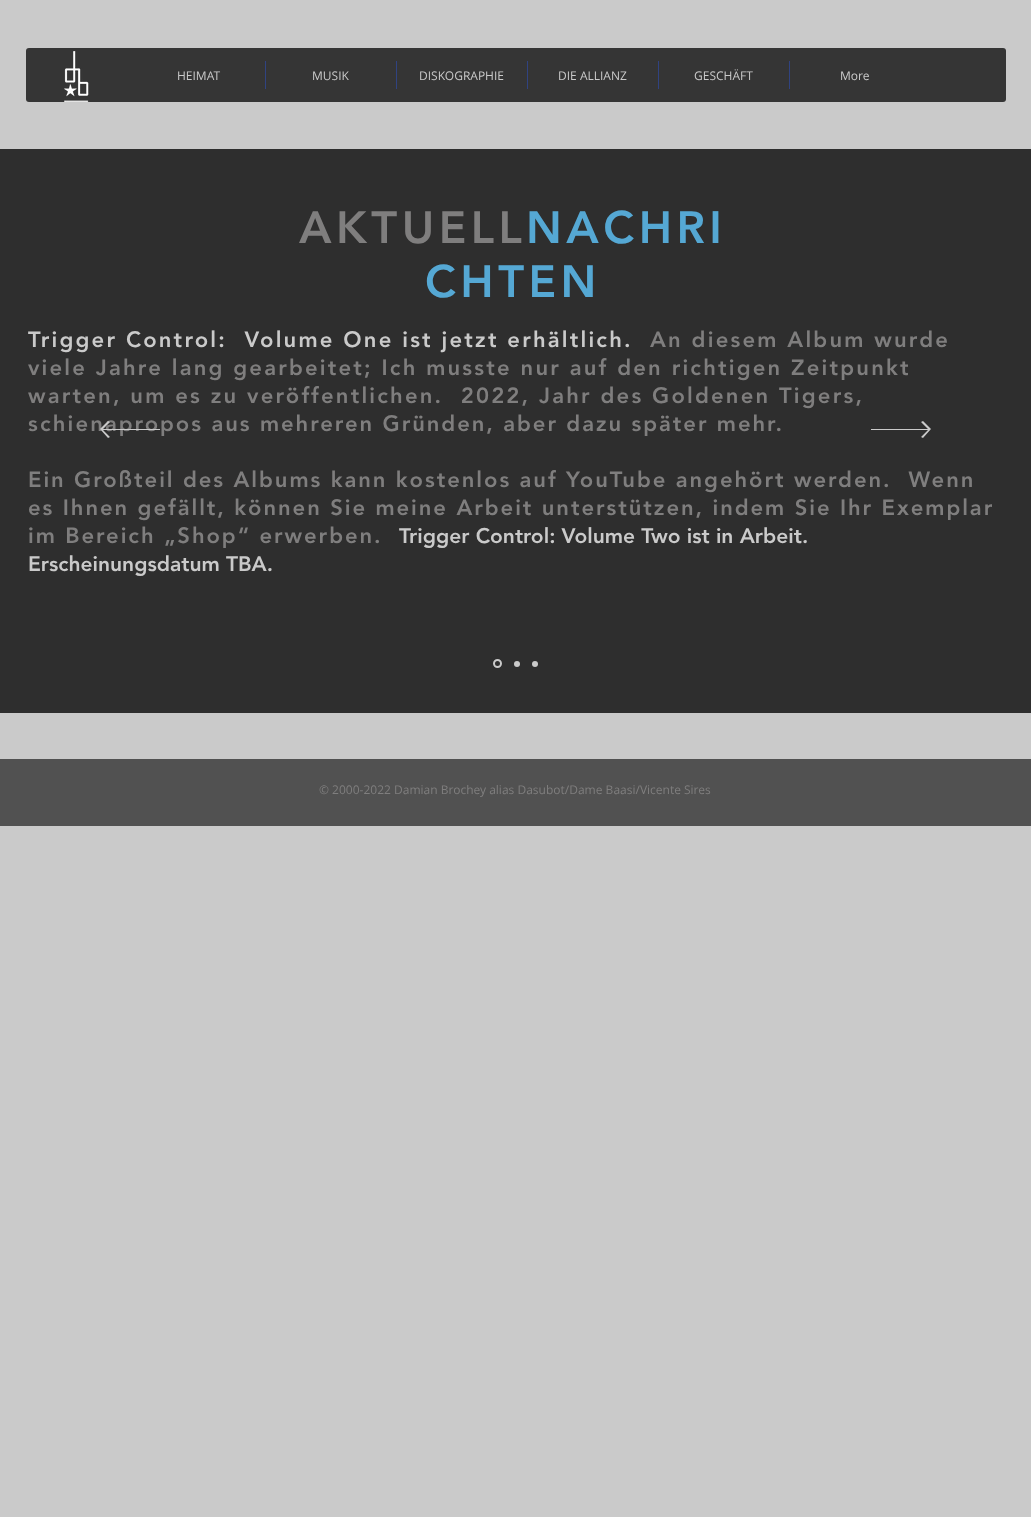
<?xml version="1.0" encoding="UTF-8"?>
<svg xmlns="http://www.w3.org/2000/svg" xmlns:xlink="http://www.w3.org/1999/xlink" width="1031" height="1517">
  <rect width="100%" height="100%" fill="#cacaca" />
  <rect x="26" y="48" width="980" height="54" rx="3" fill="#353535" />
  <image x="64" y="51" width="25" height="51" xlink:href="image1.png" />
  <rect x="265" y="61" width="1" height="28" fill="#304381" />
  <rect x="396" y="61" width="1" height="28" fill="#304381" />
  <rect x="527" y="61" width="1" height="28" fill="#304381" />
  <rect x="658" y="61" width="1" height="28" fill="#304381" />
  <rect x="789" y="61" width="1" height="28" fill="#304381" />
  <rect y="149" width="1031" height="564" fill="#2e2e2e" />
  <path d="M 923 421 l -2 1 l 7 7 h -57 v 1 h 57 l -7 7 l 2 1 l 8 -9 z" fill="#cacaca" />
  <circle cx="497.5" cy="663.5" r="3.5" fill="none" stroke="#cacaca" stroke-width="2" />
  <circle cx="517" cy="664" r="3" fill="#cacaca" />
  <circle cx="535" cy="664" r="3" fill="#cacaca" />
  <rect y="759" width="1031" height="67" fill="#515151" />
  <text x="177" y="80" style="font-family: Open Sans; font-size: 12px; fill: #cacaca">HEIMAT</text>
  <text x="312" y="80" style="font-family: Open Sans; font-size: 12px; fill: #cacaca">MUSIK</text>
  <text x="419" y="80" style="font-family: Open Sans; font-size: 12px; fill: #cacaca">DISKOGRAPHIE</text>
  <text x="558" y="80" style="font-family: Open Sans; font-size: 12px; fill: #cacaca">DIE ALLIANZ</text>
  <text x="694" y="80" style="font-family: Open Sans; font-size: 12px; fill: #cacaca">GESCHÄFT</text>
  <text x="840" y="80" style="font-family: Open Sans; font-size: 12px; fill: #cacaca">More</text>
  <text x="299" y="243" style="font-family: 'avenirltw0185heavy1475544'; font-size: 45px; font-weight: 900; letter-spacing: 4.5px; fill: #7f7e7e">AKTUELL</text>
  <text x="526" y="243" style="font-family: 'avenirltw0185heavy1475544'; font-size: 45px; font-weight: 900; letter-spacing: 4.5px; fill: #55a8d4">NACHRI</text>
  <text x="425" y="297" style="font-family: 'avenirltw0185heavy1475544'; font-size: 45px; font-weight: 900; letter-spacing: 4.5px; fill: #55a8d4">CHTEN</text>
  <text x="28" y="347" style="font-family: 'avenirltw0185heavy1475544'; font-size: 22px; font-weight: 900; letter-spacing: 2.2px; fill: #cacaca" xml:space="preserve">Trigger Control:  Volume One ist jetzt erhältlich.</text>
  <text x="650" y="347" style="font-family: 'avenirltw0185heavy1475544'; font-size: 22px; font-weight: 900; letter-spacing: 2.2px; fill: #7f7e7e">An diesem Album wurde</text>
  <text x="28" y="375" style="font-family: 'avenirltw0185heavy1475544'; font-size: 22px; font-weight: 900; letter-spacing: 2.2px; fill: #7f7e7e">viele Jahre lang gearbeitet; Ich musste nur auf den richtigen Zeitpunkt</text>
  <text x="28" y="403" style="font-family: 'avenirltw0185heavy1475544'; font-size: 22px; font-weight: 900; letter-spacing: 2.2px; fill: #7f7e7e" xml:space="preserve">warten, um es zu veröffentlichen.  2022, Jahr des Goldenen Tigers,</text>
  <text x="28" y="431" style="font-family: 'avenirltw0185heavy1475544'; font-size: 22px; font-weight: 900; letter-spacing: 2.2px; fill: #7f7e7e">schien</text>
  <text x="105" y="431" style="font-family: 'avenirltw0185heavy1475544'; font-size: 22px; font-weight: 900; letter-spacing: 1.95px; fill: #7f7e7e">apropos aus mehreren Gründen, aber dazu später mehr.</text>
  <text x="28" y="487" style="font-family: 'avenirltw0185heavy1475544'; font-size: 22px; font-weight: 900; letter-spacing: 1.95px; fill: #7f7e7e" xml:space="preserve">Ein Großteil des Albums kann kostenlos auf YouTube angehört werden.  Wenn</text>
  <text x="28" y="515" style="font-family: 'avenirltw0185heavy1475544'; font-size: 22px; font-weight: 900; letter-spacing: 1.95px; fill: #7f7e7e">es Ihnen gefällt, können Sie meine Arbeit unterstützen, indem Sie Ihr Exemplar</text>
  <text x="28" y="543" style="font-family: 'avenirltw0185heavy1475544'; font-size: 22px; font-weight: 900; letter-spacing: 1.95px; fill: #7f7e7e">im Bereich „Shop“ erwerben.</text>
  <text x="399" y="543" style="font-family: 'avenirltw0185heavy1475544'; font-size: 21px; font-weight: 900; fill: #cacaca">Trigger Control: Volume Two ist in Arbeit.</text>
  <text x="28" y="571" style="font-family: 'avenirltw0185heavy1475544'; font-size: 21px; font-weight: 900; fill: #cacaca">Erscheinungsdatum TBA.</text>
  <path d="M 108 421 l 2 1 l -7 7 h 57 v 1 h -57 l 7 7 l -2 1 l -8 -9 z" fill="#cacaca" />
  <text x="319" y="794" style="font-family: Open Sans; font-size: 12px; fill: #7f7e7e">© 2000-2022 Damian Brochey alias Dasubot/Dame Baasi/Vicente Sires</text>
</svg>
